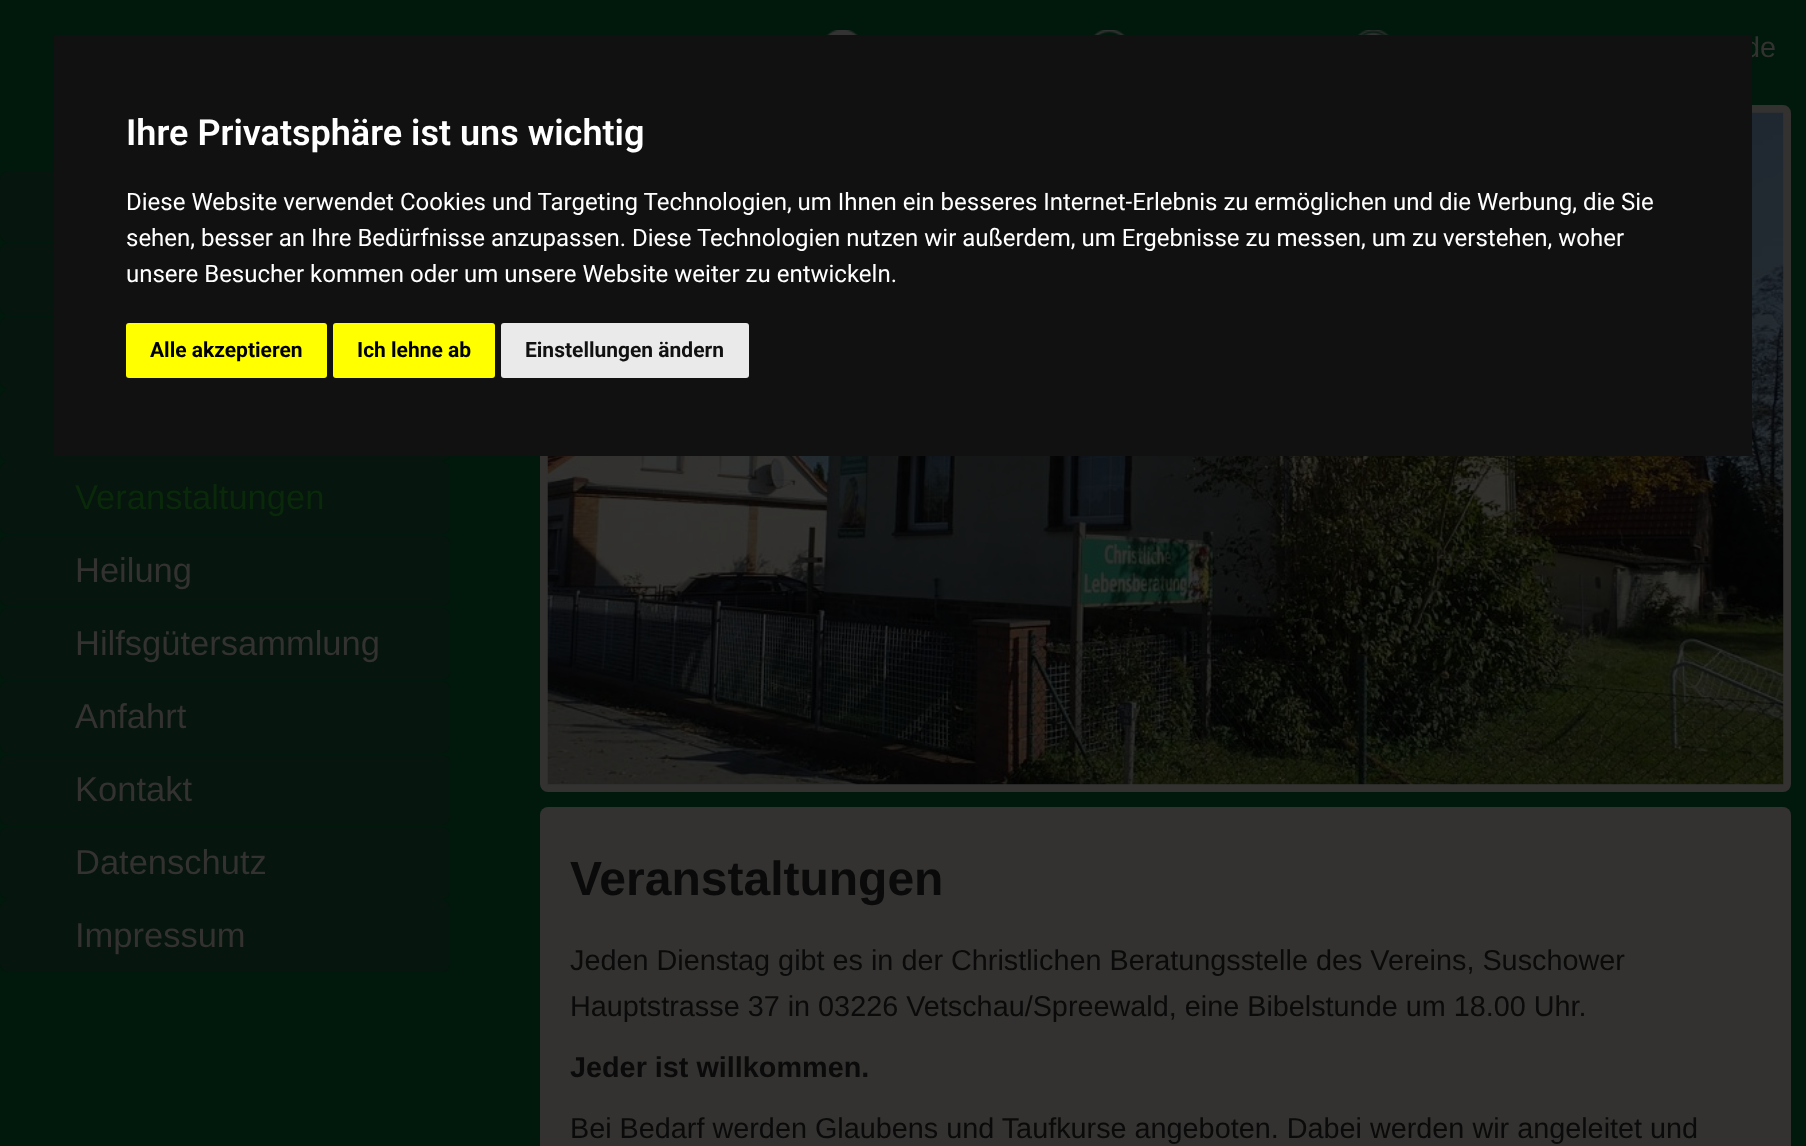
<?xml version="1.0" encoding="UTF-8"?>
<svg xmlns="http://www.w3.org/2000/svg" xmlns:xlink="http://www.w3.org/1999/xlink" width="1806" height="1146">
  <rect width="100%" height="100%" fill="#01190d" />
  <rect y="171" width="450" height="71" rx="8" fill="#06150d" />
  <rect y="243" width="450" height="72" rx="8" fill="#06150d" />
  <rect y="317" width="450" height="72" rx="8" fill="#06150d" />
  <rect y="390" width="450" height="71" rx="8" fill="#06150d" />
  <rect y="462" width="450" height="72" rx="8" fill="#06150d" />
  <rect y="536" width="450" height="70" rx="8" fill="#06150d" />
  <rect y="608" width="450" height="72" rx="8" fill="#06150d" />
  <rect y="681" width="450" height="72" rx="8" fill="#06150d" />
  <rect y="755" width="450" height="70" rx="8" fill="#06150d" />
  <rect y="827" width="450" height="72" rx="8" fill="#06150d" />
  <rect y="900" width="450" height="72" rx="8" fill="#06150d" />
  <image x="826" y="30" width="33" height="5" xlink:href="image1.png" />
  <image x="1093" y="30" width="33" height="5" xlink:href="image2.png" />
  <image x="1357" y="30" width="33" height="5" xlink:href="image3.png" />
  <rect x="544" y="109" width="1243" height="679" rx="4" fill="none" stroke="#333230" stroke-width="8" />
  <rect x="548" y="113" width="1236" height="672" fill="#333333" />
  <image x="547" y="112" width="1237" height="673" xlink:href="image4.png" />
  <rect x="540" y="807" width="1251" height="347" rx="8" fill="#333230" />
  <text x="75" y="509" style="font-family: Liberation Sans; font-size: 34.5px; fill: #0a290a">Veranstaltungen</text>
  <text x="75" y="582" style="font-family: Liberation Sans; font-size: 34.5px; fill: #333230">Heilung</text>
  <text x="75" y="655" style="font-family: Liberation Sans; font-size: 34.5px; fill: #333230">Hilfsgütersammlung</text>
  <text x="75" y="728" style="font-family: Liberation Sans; font-size: 34.5px; fill: #333230">Anfahrt</text>
  <text x="75" y="801" style="font-family: Liberation Sans; font-size: 34.5px; fill: #333230">Kontakt</text>
  <text x="75" y="874" style="font-family: Liberation Sans; font-size: 34.5px; fill: #333230">Datenschutz</text>
  <text x="75" y="947" style="font-family: Liberation Sans; font-size: 34.5px; fill: #333230">Impressum</text>
  <text x="1744" y="57" style="font-family: Liberation Sans; font-size: 28.8px; fill: #333230">de</text>
  <text x="570" y="895" style="font-family: Liberation Sans; font-size: 48px; font-weight: bold; fill: #0a0a0a">Veranstaltungen</text>
  <text x="570" y="970" style="font-family: Liberation Sans; font-size: 28.8px; fill: #0a0a0a">Jeden Dienstag gibt es in der Christlichen Beratungsstelle des Vereins, Suschower</text>
  <text x="570" y="1016" style="font-family: Liberation Sans; font-size: 28.8px; fill: #0a0a0a">Hauptstrasse 37 in 03226 Vetschau/Spreewald, eine Bibelstunde um 18.00 Uhr.</text>
  <text x="570" y="1077" style="font-family: Liberation Sans; font-size: 28.8px; font-weight: bold; fill: #0a0a0a">Jeder ist willkommen.</text>
  <text x="570" y="1138" style="font-family: Liberation Sans; font-size: 28.8px; fill: #0a0a0a">Bei Bedarf werden Glaubens und Taufkurse angeboten. Dabei werden wir angeleitet und</text>
  <rect x="54" y="35" width="1698" height="421" fill="#111111" />
  <text x="126" y="145" style="font-family: Roboto; font-size: 36px; font-weight: 600; fill: #ffffff">Ihre Privatsphäre ist uns wichtig</text>
  <text x="126" y="210" style="font-family: Roboto; font-size: 24px; fill: #ffffff">Diese Website verwendet Cookies und Targeting Technologien, um Ihnen ein besseres Internet-Erlebnis zu ermöglichen und die Werbung, die Sie</text>
  <text x="126" y="246" style="font-family: Roboto; font-size: 24px; fill: #ffffff">sehen, besser an Ihre Bedürfnisse anzupassen. Diese Technologien nutzen wir außerdem, um Ergebnisse zu messen, um zu verstehen, woher</text>
  <text x="126" y="282" style="font-family: Roboto; font-size: 24px; fill: #ffffff">unsere Besucher kommen oder um unsere Website weiter zu entwickeln.</text>
  <rect x="126" y="323" width="201" height="55" rx="3" fill="#ffff00" />
  <text x="150" y="357" style="font-family: Roboto; font-size: 21px; font-weight: bold; fill: #000000">Alle akzeptieren</text>
  <rect x="333" y="323" width="162" height="55" rx="3" fill="#ffff00" />
  <text x="357" y="357" style="font-family: Roboto; font-size: 21px; font-weight: bold; fill: #000000">Ich lehne ab</text>
  <rect x="501" y="323" width="248" height="55" rx="3" fill="#eaeaea" />
  <text x="525" y="357" style="font-family: Roboto; font-size: 21px; font-weight: bold; fill: #111111">Einstellungen ändern</text>
</svg>
